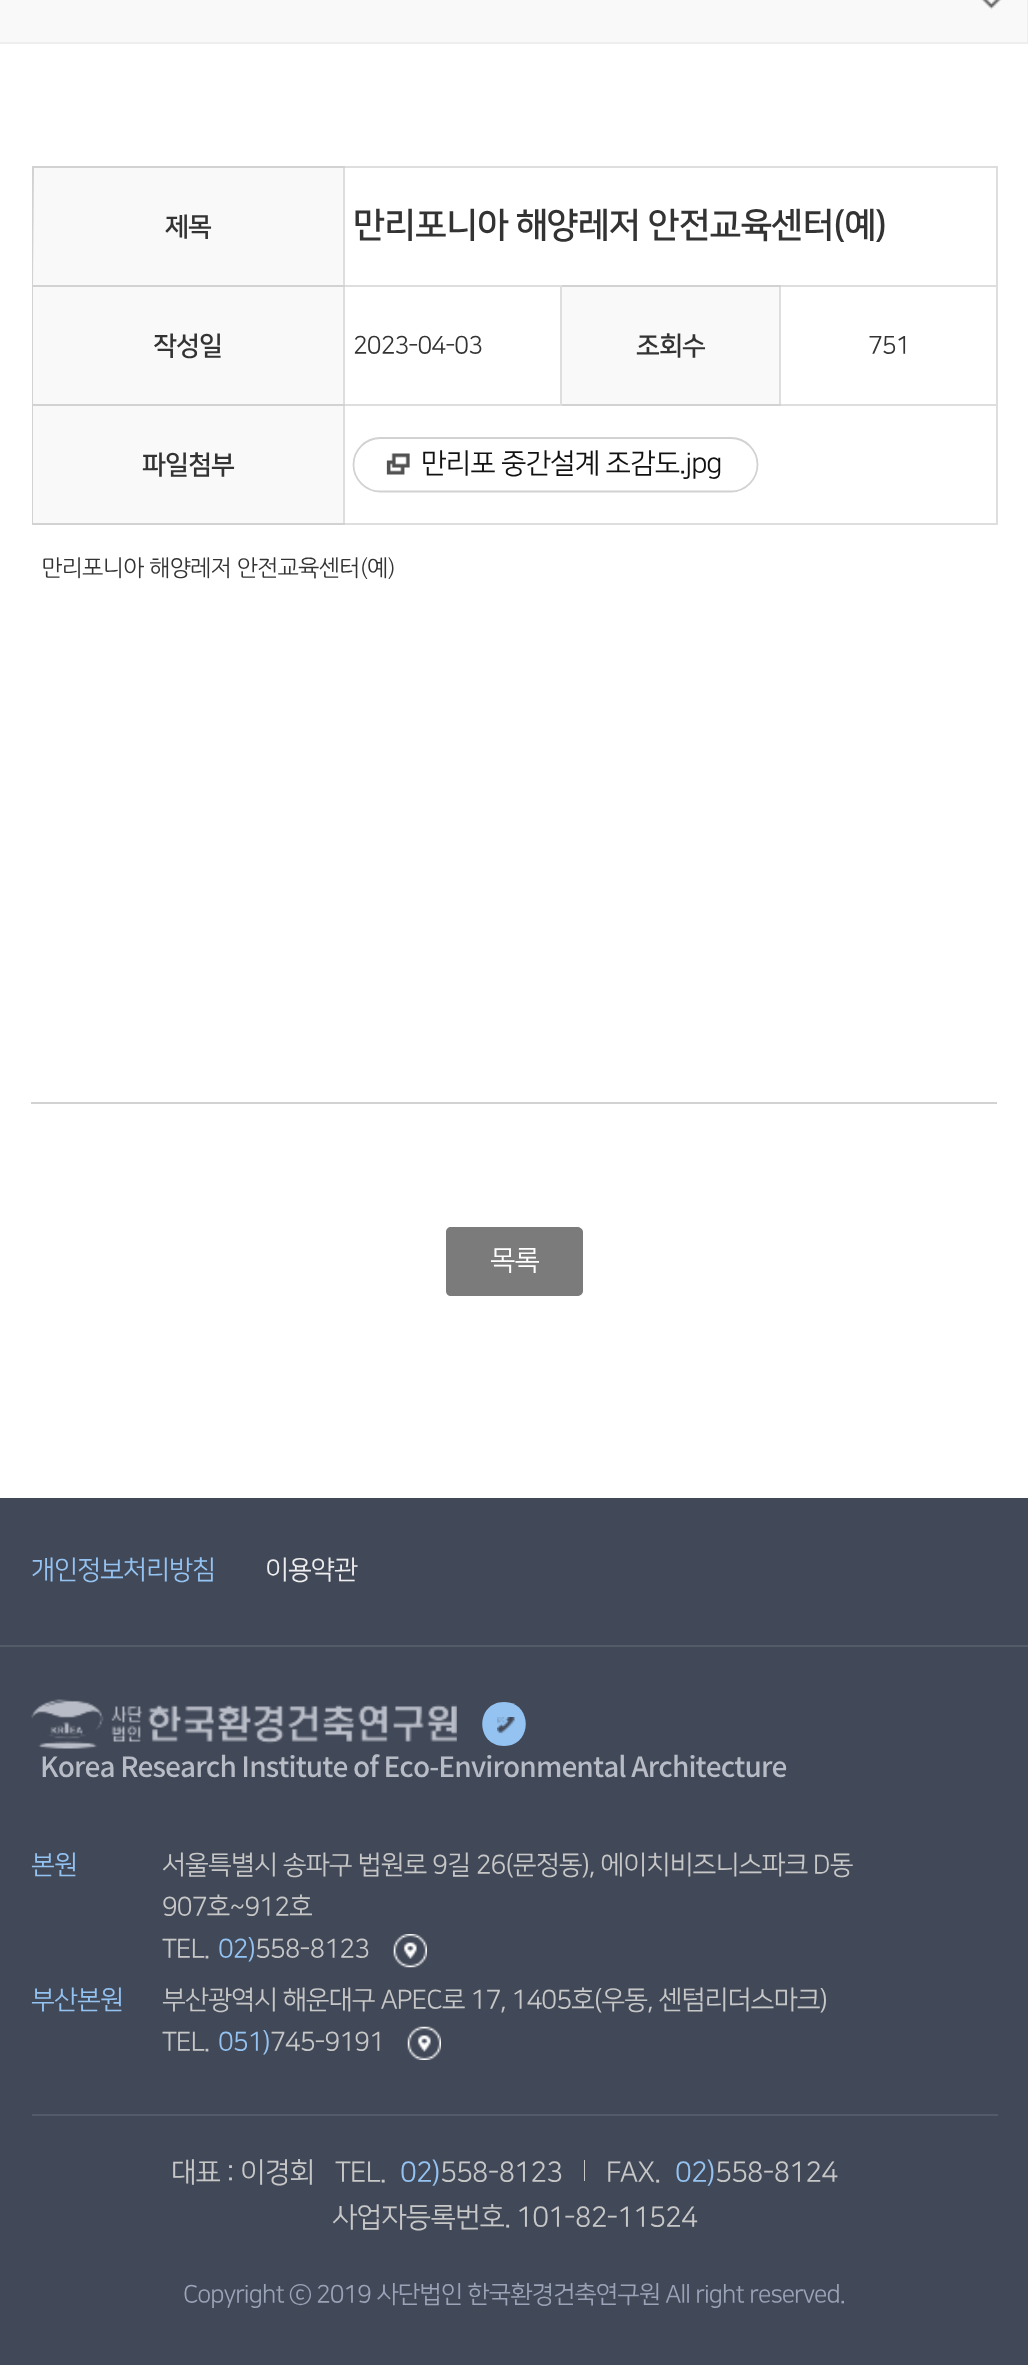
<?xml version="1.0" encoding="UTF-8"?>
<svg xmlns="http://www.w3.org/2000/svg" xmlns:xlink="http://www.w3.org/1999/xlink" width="1028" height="2365">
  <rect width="100%" height="100%" fill="#ffffff" />
  <rect width="1027" height="42" fill="#f9f9f9" />
  <rect y="42" width="1028" height="2" fill="#eeeeee" />
  <image x="981" y="0" width="21" height="10" xlink:href="image1.png" />
  <rect x="1027" width="1" height="42" fill="#eeeeee" />
  <rect x="31" y="1102" width="966" height="2" fill="#d2d2d2" />
  <rect x="33" y="168" width="310" height="117" fill="#f9f9f9" />
  <rect x="343" y="166" width="655" height="2" fill="#dedede" />
  <rect x="779" y="285" width="219" height="2" fill="#dedede" />
  <rect x="343" y="404" width="655" height="2" fill="#dedede" />
  <rect x="779" y="285" width="2" height="121" fill="#dedede" />
  <rect x="560" y="285" width="221" height="2" fill="#d2d2d2" />
  <rect x="343" y="285" width="219" height="2" fill="#dedede" />
  <rect x="343" y="404" width="2" height="121" fill="#dedede" />
  <rect x="343" y="285" width="2" height="121" fill="#dedede" />
  <rect x="343" y="166" width="2" height="121" fill="#dedede" />
  <rect x="32" y="166" width="313" height="2" fill="#d2d2d2" />
  <rect x="32" y="523" width="313" height="2" fill="#d2d2d2" />
  <rect x="32" y="404" width="1" height="121" fill="#d2d2d2" />
  <rect x="32" y="404" width="313" height="2" fill="#d2d2d2" />
  <rect x="32" y="285" width="1" height="121" fill="#d2d2d2" />
  <rect x="32" y="285" width="313" height="2" fill="#d2d2d2" />
  <path d="M 32 166 h 2 l -1 121 h -1 z" fill="#d2d2d2" />
  <rect x="345" y="523" width="653" height="2" fill="#dedede" />
  <rect x="996" y="404" width="2" height="121" fill="#dedede" />
  <rect x="996" y="285" width="2" height="121" fill="#dedede" />
  <rect x="996" y="166" width="2" height="121" fill="#dedede" />
  <rect x="33" y="287" width="310" height="117" fill="#f9f9f9" />
  <rect x="560" y="404" width="221" height="2" fill="#d2d2d2" />
  <rect x="560" y="285" width="2" height="121" fill="#dedede" />
  <rect x="562" y="287" width="217" height="117" fill="#f9f9f9" />
  <rect x="33" y="406" width="310" height="117" fill="#f9f9f9" />
  <image x="386" y="453" width="24" height="22" xlink:href="image2.png" />
  <path d="M 380.5 438 h 350.5 c 14.5 0 26.5 12 26.5 26.5 c 0 15 -12 27 -26.5 27 h -350.5 c -15 0 -27 -12 -27 -27 c 0 -14.5 12 -26.5 27 -26.5 z" fill="none" stroke="#d2d2d2" stroke-width="1.8" />
  <path d="M 451 1227 h 126 c 3 0 6 2 6 5 v 59 c 0 3 -3 5 -6 5 h -126 c -3 0 -5 -2 -5 -5 v -59 c 0 -3 2 -5 5 -5 z" fill="#7b7b7b" />
  <rect y="1498" width="1028" height="867" fill="#414857" />
  <rect y="1645" width="1028" height="2" fill="#545b68" />
  <path d="M 504 1702 c 29 0 29 44 0 44 c -29 0 -29 -44 0 -44 z" fill="#94c3f2" />
  <image x="497" y="1717" width="18" height="17" xlink:href="image3.png" />
  <image x="31" y="1699" width="426" height="50" xlink:href="image4.png" />
  <image x="393" y="1934" width="34" height="34" xlink:href="image5.png" />
  <image x="407" y="2026" width="34" height="34" xlink:href="image6.png" />
  <rect x="32" y="2114" width="966" height="2" fill="#545b68" />
  <rect x="584" y="2160" width="1" height="21" fill="#c7c7c7" />
  <text x="165" y="235" style="font-family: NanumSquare; font-size: 26.25px; font-weight: bold; letter-spacing: -0.88px; fill: #333333">제목</text>
  <text x="353" y="236" style="font-family: NanumSquare; font-size: 35px; font-weight: bold; letter-spacing: -0.88px; fill: #333333">만리포니아 해양레저 안전교육센터(예)</text>
  <text x="153" y="354" style="font-family: NanumSquare; font-size: 26.25px; font-weight: bold; letter-spacing: -0.88px; fill: #333333">작성일</text>
  <text x="353" y="353" style="font-family: NanumSquare; font-size: 24.5px; letter-spacing: -0.88px; fill: #333333">2023-04-03</text>
  <text x="636" y="354" style="font-family: NanumSquare; font-size: 26.25px; font-weight: bold; letter-spacing: -0.88px; fill: #333333">조회수</text>
  <text x="868" y="353" style="font-family: NanumSquare; font-size: 24.5px; letter-spacing: -0.88px; fill: #333333">751</text>
  <text x="142" y="473" style="font-family: NanumSquare; font-size: 26.25px; font-weight: bold; letter-spacing: -0.88px; fill: #333333">파일첨부</text>
  <text x="421" y="472" style="font-family: NanumSquare; font-size: 28px; letter-spacing: -0.88px; fill: #111111">만리포 중간설계 조감도.jpg</text>
  <text x="41" y="576" style="font-family: NanumGothic; font-size: 22.75px; letter-spacing: -0.88px; fill: #333333">만리포니아 해양레저 안전교육센터(예)</text>
  <text x="490" y="1269" style="font-family: NanumSquare; font-size: 28px; letter-spacing: -0.88px; fill: #ffffff">목록</text>
  <text x="31" y="1578" style="font-family: NanumSquare; font-size: 26.25px; letter-spacing: -0.88px; fill: #94c3f2">개인정보처리방침</text>
  <text x="265" y="1578" style="font-family: NanumSquare; font-size: 26.25px; letter-spacing: -0.88px; fill: #eeeeee">이용약관</text>
  <text x="40" y="1777" style="font-family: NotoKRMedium; font-size: 28px; font-weight: 500; letter-spacing: -0.88px; fill: #b8bcc7">Korea Research Institute of Eco-Environmental Architecture</text>
  <text x="31" y="1873" style="font-family: NanumSquare; font-size: 26.25px; letter-spacing: -0.88px; fill: #94c3f2">본원</text>
  <text x="162" y="1873" style="font-family: NanumSquare; font-size: 26.25px; letter-spacing: -0.88px; fill: #c7c7c7">서울특별시 송파구 법원로 9길 26(문정동), 에이치비즈니스파크 D동</text>
  <text x="162" y="1915" style="font-family: NanumSquare; font-size: 26.25px; letter-spacing: -0.88px; fill: #c7c7c7">907호~912호</text>
  <text x="162" y="1957" style="font-family: NanumSquare; font-size: 26.25px; letter-spacing: -0.88px; fill: #c7c7c7">TEL.</text>
  <text x="218" y="1957" style="font-family: NanumSquare; font-size: 26.25px; letter-spacing: -0.88px; fill: #94c3f2">02)</text>
  <text x="255" y="1957" style="font-family: NanumSquare; font-size: 26.25px; letter-spacing: -0.88px; fill: #c7c7c7">558-8123</text>
  <text x="31" y="2008" style="font-family: NanumSquare; font-size: 26.25px; letter-spacing: -0.88px; fill: #94c3f2">부산본원</text>
  <text x="162" y="2008" style="font-family: NanumSquare; font-size: 26.25px; letter-spacing: -0.88px; fill: #c7c7c7">부산광역시 해운대구 APEC로 17, 1405호(우동, 센텀리더스마크)</text>
  <text x="162" y="2050" style="font-family: NanumSquare; font-size: 26.25px; letter-spacing: -0.88px; fill: #c7c7c7">TEL.</text>
  <text x="218" y="2050" style="font-family: NanumSquare; font-size: 26.25px; letter-spacing: -0.88px; fill: #94c3f2">051)</text>
  <text x="270" y="2050" style="font-family: NanumSquare; font-size: 26.25px; letter-spacing: -0.88px; fill: #c7c7c7">745-9191</text>
  <text x="171" y="2181" style="font-family: NanumSquare; font-size: 28px; letter-spacing: -0.88px; fill: #c7c7c7">대표 : 이경회</text>
  <text x="335" y="2181" style="font-family: NanumSquare; font-size: 28px; letter-spacing: -0.88px; fill: #c7c7c7">TEL.</text>
  <text x="400" y="2181" style="font-family: NanumSquare; font-size: 28px; letter-spacing: -0.88px; fill: #94c3f2">02)</text>
  <text x="440" y="2181" style="font-family: NanumSquare; font-size: 28px; letter-spacing: -0.88px; fill: #c7c7c7">558-8123</text>
  <text x="606" y="2181" style="font-family: NanumSquare; font-size: 28px; letter-spacing: -0.88px; fill: #c7c7c7">FAX.</text>
  <text x="675" y="2181" style="font-family: NanumSquare; font-size: 28px; letter-spacing: -0.88px; fill: #94c3f2">02)</text>
  <text x="715" y="2181" style="font-family: NanumSquare; font-size: 28px; letter-spacing: -0.88px; fill: #c7c7c7">558-8124</text>
  <text x="332" y="2226" style="font-family: NanumSquare; font-size: 28px; letter-spacing: -0.88px; fill: #c7c7c7">사업자등록번호. 101-82-11524</text>
  <text x="183" y="2302" style="font-family: NanumSquare; font-size: 24.5px; letter-spacing: -0.88px; fill: #9aa3b7">Copyright ⓒ 2019 사단법인 한국환경건축연구원 All right reserved.</text>
</svg>
